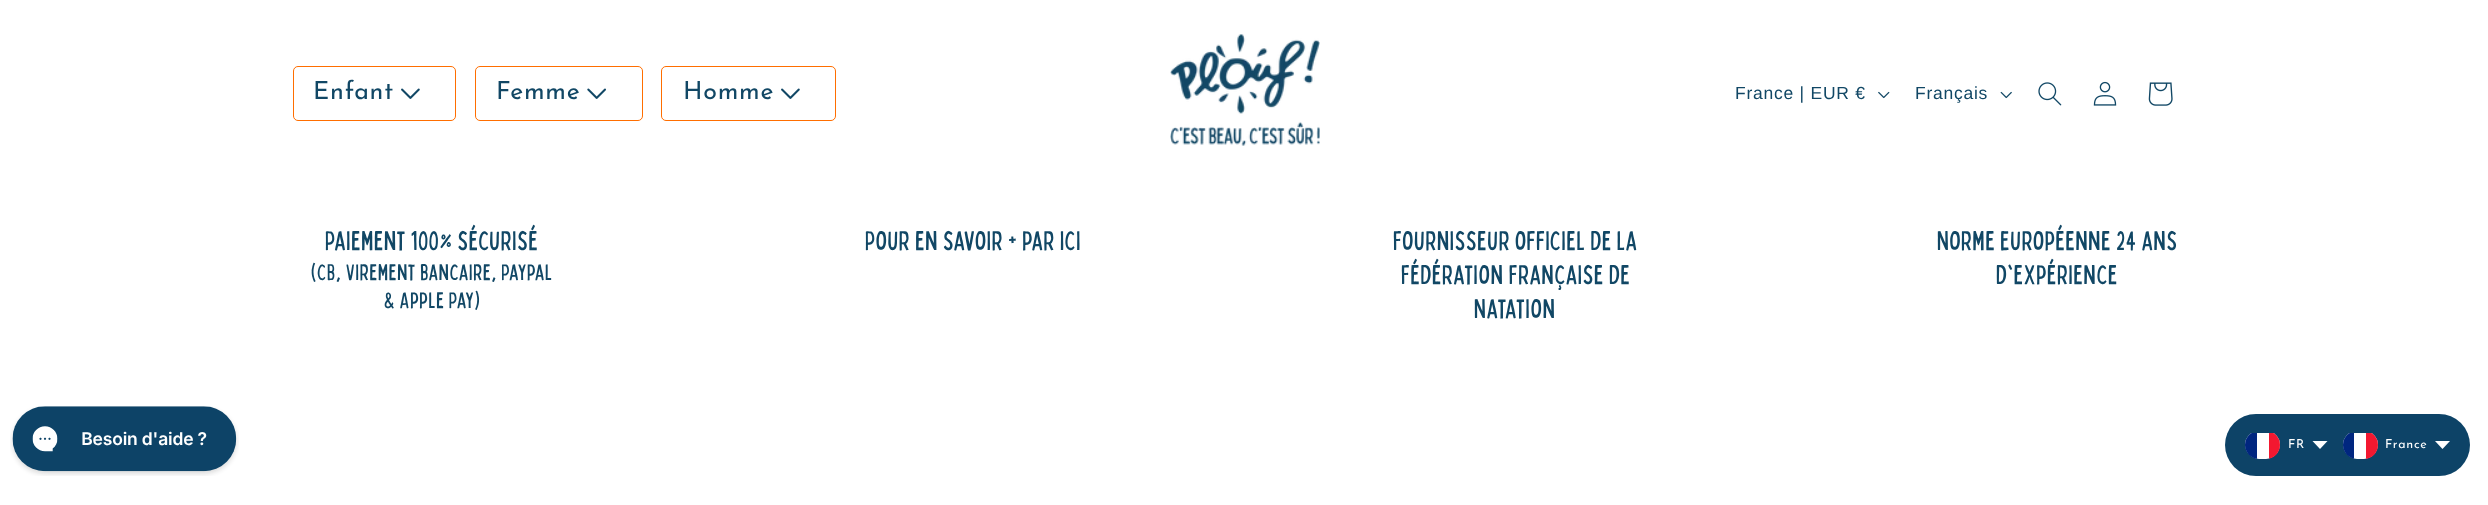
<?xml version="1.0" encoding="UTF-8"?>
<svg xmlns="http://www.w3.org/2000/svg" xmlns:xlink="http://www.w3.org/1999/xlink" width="2488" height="505">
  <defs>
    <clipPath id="clip1"><rect x="2245" y="431" width="35" height="28" rx="14" /></clipPath>
    <clipPath id="clip2"><rect x="2343" y="431" width="35" height="28" rx="14" /></clipPath>
  </defs>
  <rect width="100%" height="100%" fill="#ffffff" />
  <rect x="293.5" y="66.5" width="162" height="54" rx="4.5" fill="none" stroke="#ff6e00" />
  <image x="401" y="88" width="19" height="11" xlink:href="image1.png" />
  <rect x="475.5" y="66.5" width="167" height="54" rx="4.5" fill="none" stroke="#ff6e00" />
  <image x="587" y="88" width="19" height="11" xlink:href="image2.png" />
  <rect x="661.5" y="66.5" width="174" height="54" rx="4.5" fill="none" stroke="#ff6e00" />
  <image x="781" y="88" width="19" height="11" xlink:href="image1.png" />
  <image x="1170" y="34" width="150" height="112" xlink:href="image3.png" />
  <image x="1878" y="91" width="12" height="8" xlink:href="image4.png" />
  <image x="2000" y="91" width="12" height="8" xlink:href="image5.png" />
  <image x="2038" y="82" width="24" height="24" xlink:href="image6.png" />
  <image x="2093" y="81" width="24" height="25" xlink:href="image7.png" />
  <image x="2148" y="82" width="25" height="24" xlink:href="image8.png" />
  <image x="10" y="406" width="229" height="70" xlink:href="image9.png" />
  <rect x="2225" y="414" width="245" height="62" rx="31" fill="#0d4367" />
  <g clip-path="url(#clip1)">
    <path d="M 2245 433 h 35 v 12 c 0 7.5 -6.5 14 -14 14 h -7 c -7.5 0 -14 -6.5 -14 -14 z" fill="#ffffff" />
    <rect x="2245" y="433" width="12" height="26" fill="#00267f" />
    <rect x="2269" y="433" width="11" height="26" fill="#f31830" />
  </g>
  <path d="M 2312.5 441 h 15 l -7.5 8 z" fill="#ffffff" />
  <g clip-path="url(#clip2)">
    <path d="M 2343 433 h 35 v 12 c 0 7.5 -6.5 14 -14 14 h -7 c -7.5 0 -14 -6.5 -14 -14 z" fill="#ffffff" />
    <rect x="2343" y="433" width="11" height="26" fill="#00267f" />
    <rect x="2366" y="433" width="12" height="26" fill="#f31830" />
  </g>
  <path d="M 2435 441 h 15 l -7.5 8 z" fill="#ffffff" />
  <text x="313" y="99" style="font-family: Josefin Sans; font-size: 25px; letter-spacing: 0.75px; fill: #114765">Enfant</text>
  <text x="496" y="99" style="font-family: Josefin Sans; font-size: 25px; letter-spacing: 0.75px; fill: #114765">Femme</text>
  <text x="683" y="99" style="font-family: Josefin Sans; font-size: 25px; letter-spacing: 0.75px; fill: #114765">Homme</text>
  <text x="1735" y="99" style="font-family: Liberation Sans; font-size: 17.5px; letter-spacing: 0.75px; fill: #114765">France | EUR €</text>
  <text x="1915" y="99" style="font-family: Liberation Sans; font-size: 17.5px; letter-spacing: 0.75px; fill: #114765">Français</text>
  <text x="325" y="250" style="font-family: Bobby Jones; font-size: 27px; letter-spacing: 0.9px; fill: #114765">Paiement 100% sécurisé</text>
  <text x="311" y="280" style="font-family: Bobby Jones; font-size: 22.5px; letter-spacing: 0.9px; fill: #114765">(CB, Virement bancaire, Paypal</text>
  <text x="384" y="308" style="font-family: Bobby Jones; font-size: 22.5px; letter-spacing: 0.9px; fill: #114765">&amp; Apple Pay)</text>
  <text x="865" y="250" style="font-family: Bobby Jones; font-size: 27px; letter-spacing: 0.9px; fill: #114765">Pour en savoir + par ici</text>
  <text x="1393" y="250" style="font-family: Bobby Jones; font-size: 27px; letter-spacing: 0.9px; fill: #114765">Fournisseur officiel de la</text>
  <text x="1401" y="284" style="font-family: Bobby Jones; font-size: 27px; letter-spacing: 0.9px; fill: #114765">Fédération Française de</text>
  <text x="1474" y="318" style="font-family: Bobby Jones; font-size: 27px; letter-spacing: 0.9px; fill: #114765">Natation</text>
  <text x="1937" y="250" style="font-family: Bobby Jones; font-size: 27px; letter-spacing: 0.9px; fill: #114765">Norme Européenne 24 ans</text>
  <text x="1996" y="284" style="font-family: Bobby Jones; font-size: 27px; letter-spacing: 0.9px; fill: #114765">d'expérience</text>
  <text x="2288" y="448" style="font-family: Josefin Sans; font-size: 12.5px; letter-spacing: 0.75px; fill: #ffffff">FR</text>
  <text x="2385" y="448" style="font-family: Josefin Sans; font-size: 12.5px; letter-spacing: 0.75px; fill: #ffffff">France</text>
</svg>
